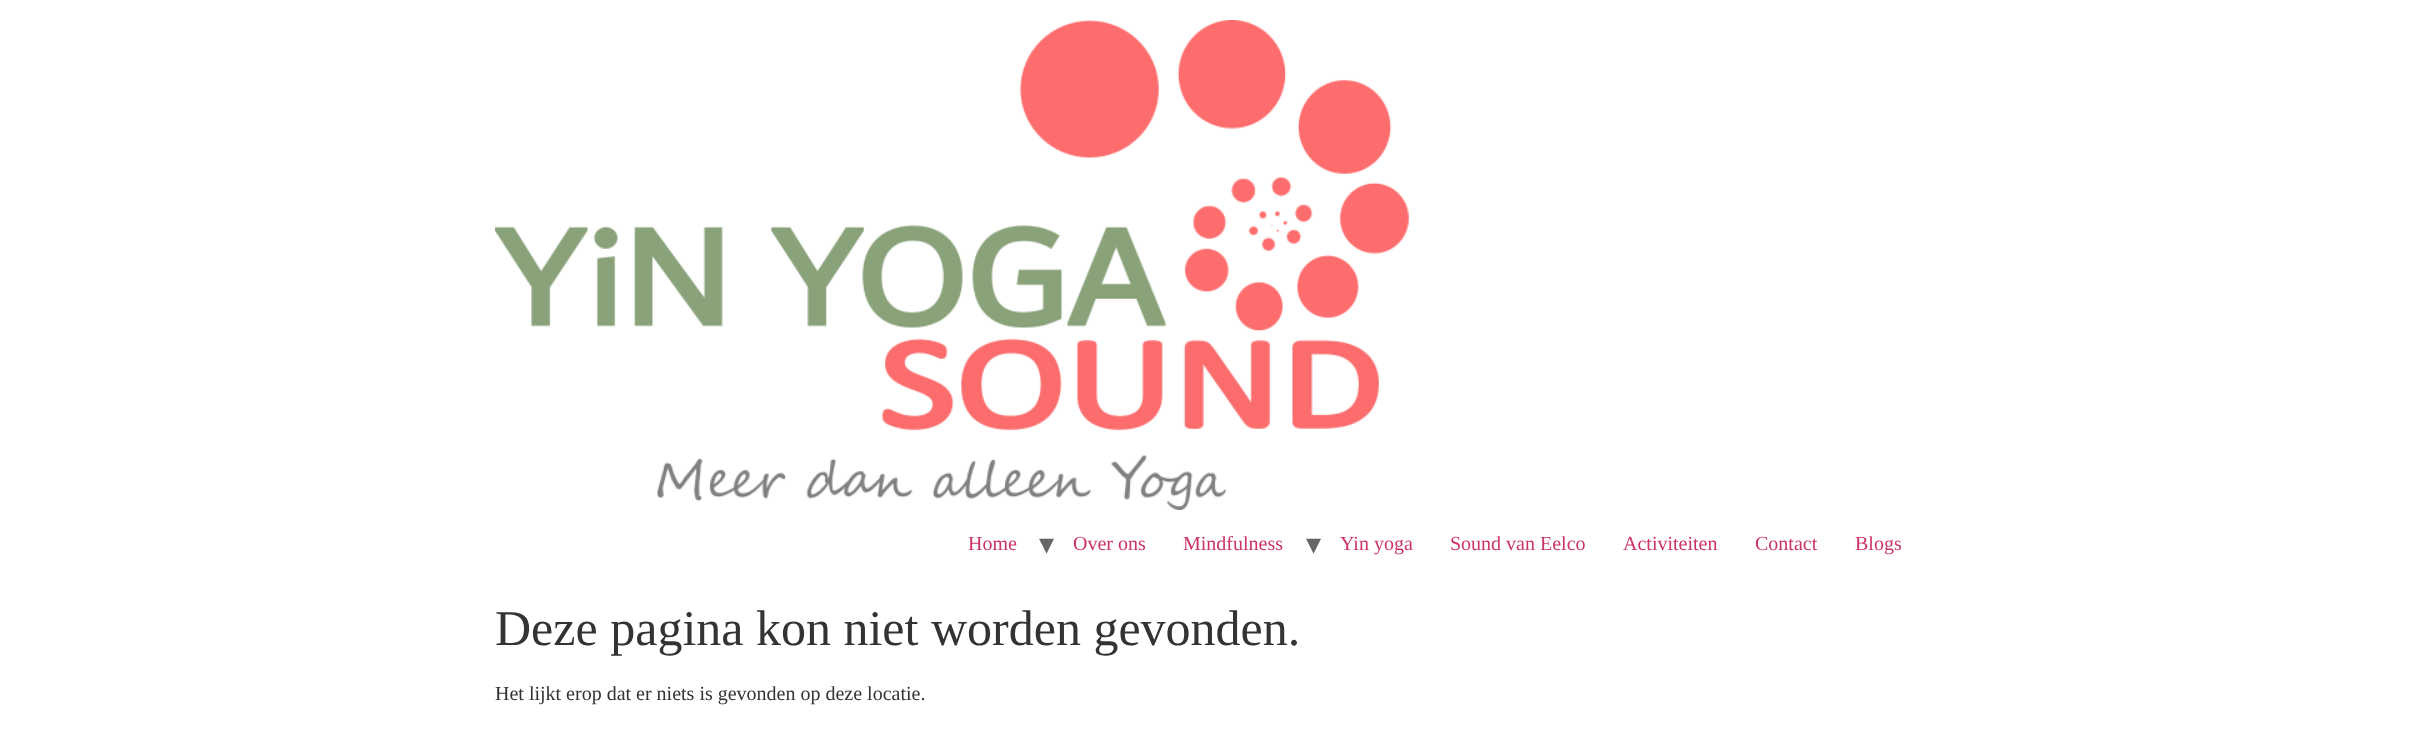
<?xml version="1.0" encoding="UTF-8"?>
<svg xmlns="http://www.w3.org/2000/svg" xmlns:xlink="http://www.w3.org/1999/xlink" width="2415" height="731">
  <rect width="100%" height="100%" fill="#ffffff" />
  <image x="495" y="20" width="914" height="490" xlink:href="image1.png" />
  <text x="968" y="550" style="font-family: Liberation Serif; font-size: 20px; fill: #cc3366">Home</text>
  <text x="1039" y="554" style="font-family: DejaVu Sans; font-size: 30px; fill: #666666">▾</text>
  <text x="1073" y="550" style="font-family: Liberation Serif; font-size: 20px; fill: #cc3366">Over ons</text>
  <text x="1183" y="550" style="font-family: Liberation Serif; font-size: 20px; fill: #cc3366">Mindfulness</text>
  <text x="1306" y="554" style="font-family: DejaVu Sans; font-size: 30px; fill: #666666">▾</text>
  <text x="1340" y="550" style="font-family: Liberation Serif; font-size: 20px; fill: #cc3366">Yin yoga</text>
  <text x="1450" y="550" style="font-family: Liberation Serif; font-size: 20px; fill: #cc3366">Sound van Eelco</text>
  <text x="1623" y="550" style="font-family: Liberation Serif; font-size: 20px; fill: #cc3366">Activiteiten</text>
  <text x="1755" y="550" style="font-family: Liberation Serif; font-size: 20px; fill: #cc3366">Contact</text>
  <text x="1855" y="550" style="font-family: Liberation Serif; font-size: 20px; fill: #cc3366">Blogs</text>
  <text x="495" y="645" style="font-family: Liberation Serif; font-size: 50px; fill: #333333">Deze pagina kon niet worden gevonden.</text>
  <text x="495" y="700" style="font-family: Liberation Serif; font-size: 20px; fill: #333333">Het lijkt erop dat er niets is gevonden op deze locatie.</text>
</svg>
